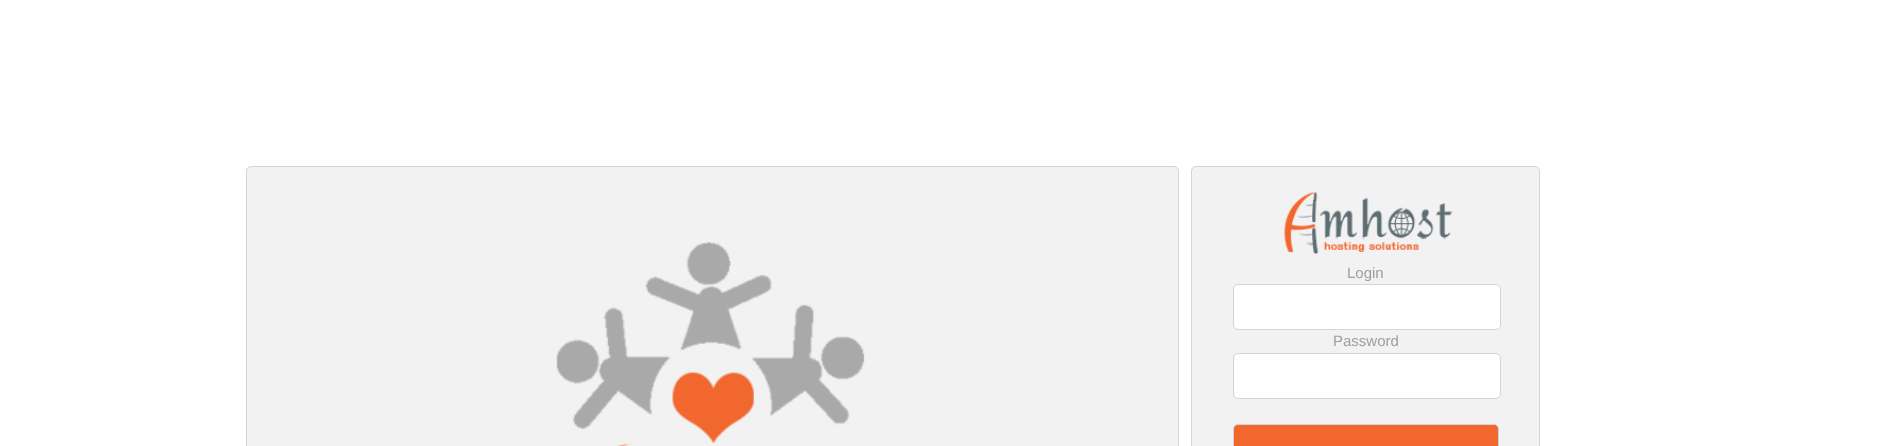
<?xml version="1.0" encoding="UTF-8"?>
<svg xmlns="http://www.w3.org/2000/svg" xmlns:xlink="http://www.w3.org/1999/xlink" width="1891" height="446">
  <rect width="100%" height="100%" fill="#ffffff" />
  <rect x="246.5" y="166.5" width="932" height="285" rx="4.5" fill="#f2f2f2" stroke="#d4d4d4" />
  <image x="556" y="242" width="309" height="204" xlink:href="image1.png" />
  <rect x="1191.5" y="166.5" width="348" height="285" rx="4.5" fill="#f2f2f2" stroke="#d4d4d4" />
  <image x="1284" y="192" width="169" height="62" xlink:href="image2.png" />
  <rect x="1233.5" y="284.5" width="267" height="45" rx="4.5" fill="#ffffff" stroke="#d4d4d4" />
  <rect x="1233.5" y="353.5" width="267" height="45" rx="4.5" fill="#ffffff" stroke="#d4d4d4" />
  <rect x="1233.5" y="424.5" width="265" height="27" rx="4.5" fill="#f2672d" stroke="#d4d4d4" />
  <text x="1347" y="278" style="font-family: Liberation Sans; font-size: 15px; fill: #9e9e9e">Login</text>
  <text x="1333" y="346" style="font-family: Liberation Sans; font-size: 15px; fill: #9e9e9e">Password</text>
</svg>
